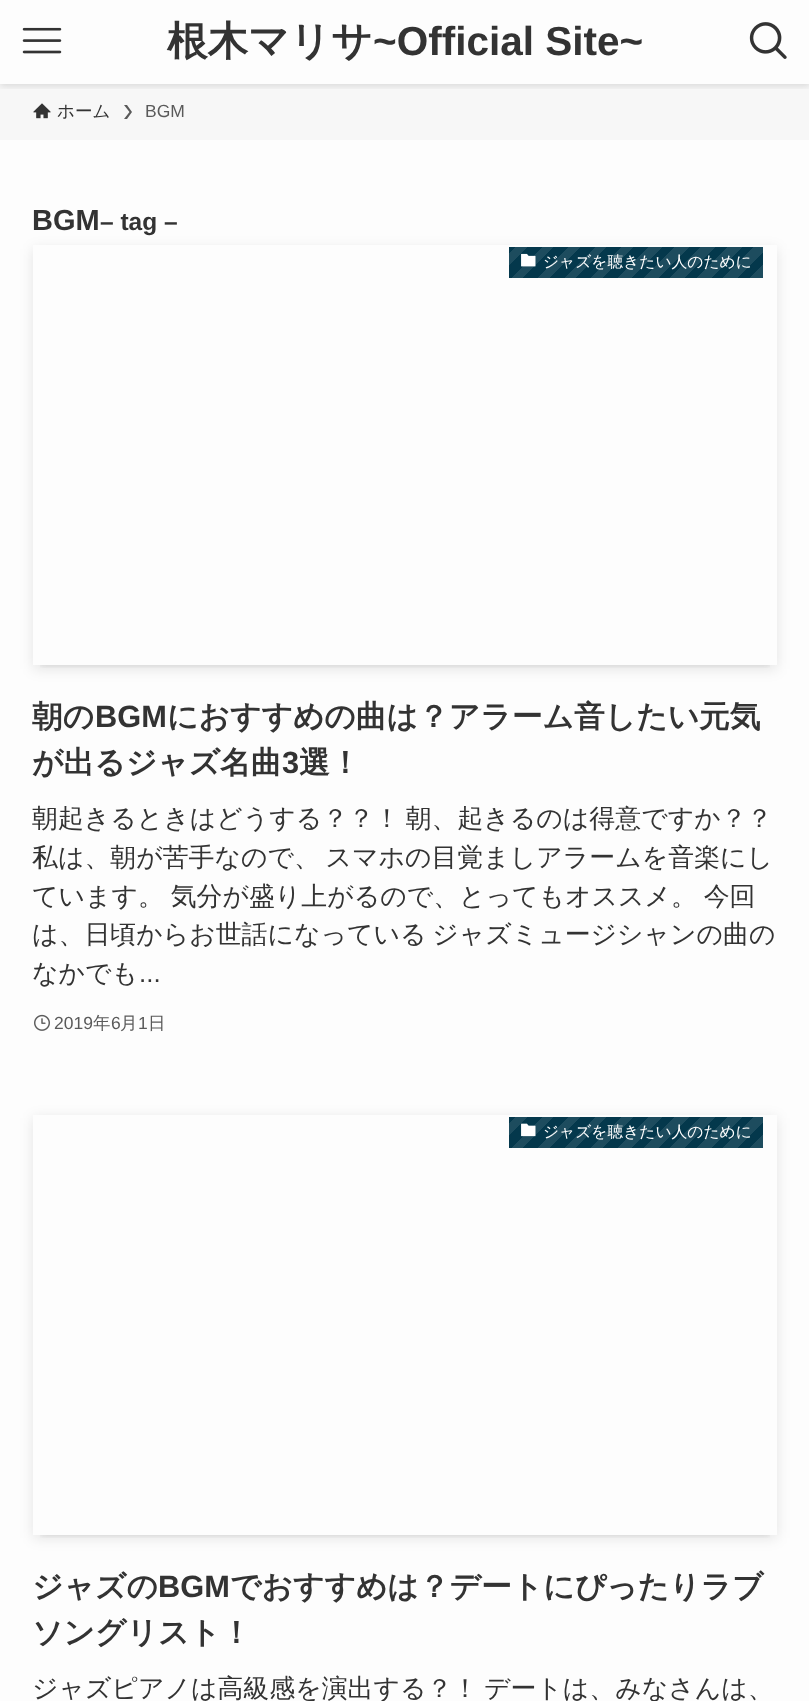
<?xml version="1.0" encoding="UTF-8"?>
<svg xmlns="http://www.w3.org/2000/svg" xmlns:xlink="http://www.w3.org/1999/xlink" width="809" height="1701">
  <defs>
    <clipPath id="clip1"><rect x="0" y="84" width="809" height="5" /></clipPath>
    <clipPath id="clip2"><rect x="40" y="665" width="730" height="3" /></clipPath>
    <clipPath id="clip3"><path d="M 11 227 h 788 v 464 h -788 z m 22 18 h 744 v 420 h -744 z" clip-rule="evenodd" /></clipPath>
    <linearGradient id="g1" gradientUnits="userSpaceOnUse" x1="708" y1="334" x2="561" y2="187"><stop offset="0" stop-color="#1d4c5e" /><stop offset="0.05" stop-color="#1d4c5e" /><stop offset="0.05" stop-color="#04384c" /><stop offset="0.09" stop-color="#04384c" /><stop offset="0.09" stop-color="#1d4c5e" /><stop offset="0.14" stop-color="#1d4c5e" /><stop offset="0.14" stop-color="#04384c" /><stop offset="0.18" stop-color="#04384c" /><stop offset="0.18" stop-color="#1d4c5e" /><stop offset="0.23" stop-color="#1d4c5e" /><stop offset="0.23" stop-color="#04384c" /><stop offset="0.27" stop-color="#04384c" /><stop offset="0.27" stop-color="#1d4c5e" /><stop offset="0.32" stop-color="#1d4c5e" /><stop offset="0.32" stop-color="#04384c" /><stop offset="0.36" stop-color="#04384c" /><stop offset="0.36" stop-color="#1d4c5e" /><stop offset="0.41" stop-color="#1d4c5e" /><stop offset="0.41" stop-color="#04384c" /><stop offset="0.45" stop-color="#04384c" /><stop offset="0.45" stop-color="#1d4c5e" /><stop offset="0.5" stop-color="#1d4c5e" /><stop offset="0.5" stop-color="#04384c" /><stop offset="0.55" stop-color="#04384c" /><stop offset="0.55" stop-color="#1d4c5e" /><stop offset="0.59" stop-color="#1d4c5e" /><stop offset="0.59" stop-color="#04384c" /><stop offset="0.64" stop-color="#04384c" /><stop offset="0.64" stop-color="#1d4c5e" /><stop offset="0.68" stop-color="#1d4c5e" /><stop offset="0.68" stop-color="#04384c" /><stop offset="0.73" stop-color="#04384c" /><stop offset="0.73" stop-color="#1d4c5e" /><stop offset="0.77" stop-color="#1d4c5e" /><stop offset="0.77" stop-color="#04384c" /><stop offset="0.82" stop-color="#04384c" /><stop offset="0.82" stop-color="#1d4c5e" /><stop offset="0.86" stop-color="#1d4c5e" /><stop offset="0.86" stop-color="#04384c" /><stop offset="0.91" stop-color="#04384c" /><stop offset="0.91" stop-color="#1d4c5e" /><stop offset="0.95" stop-color="#1d4c5e" /><stop offset="0.95" stop-color="#04384c" /><stop offset="1" stop-color="#04384c" /></linearGradient>
    <clipPath id="clip4"><rect x="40" y="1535" width="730" height="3" /></clipPath>
    <clipPath id="clip5"><path d="M 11 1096 h 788 v 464 h -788 z m 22 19 h 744 v 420 h -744 z" clip-rule="evenodd" /></clipPath>
    <linearGradient id="g2" gradientUnits="userSpaceOnUse" x1="708" y1="1204" x2="561" y2="1057"><stop offset="0" stop-color="#1d4c5e" /><stop offset="0.05" stop-color="#1d4c5e" /><stop offset="0.05" stop-color="#04384c" /><stop offset="0.09" stop-color="#04384c" /><stop offset="0.09" stop-color="#1d4c5e" /><stop offset="0.14" stop-color="#1d4c5e" /><stop offset="0.14" stop-color="#04384c" /><stop offset="0.18" stop-color="#04384c" /><stop offset="0.18" stop-color="#1d4c5e" /><stop offset="0.23" stop-color="#1d4c5e" /><stop offset="0.23" stop-color="#04384c" /><stop offset="0.27" stop-color="#04384c" /><stop offset="0.27" stop-color="#1d4c5e" /><stop offset="0.32" stop-color="#1d4c5e" /><stop offset="0.32" stop-color="#04384c" /><stop offset="0.36" stop-color="#04384c" /><stop offset="0.36" stop-color="#1d4c5e" /><stop offset="0.41" stop-color="#1d4c5e" /><stop offset="0.41" stop-color="#04384c" /><stop offset="0.45" stop-color="#04384c" /><stop offset="0.45" stop-color="#1d4c5e" /><stop offset="0.5" stop-color="#1d4c5e" /><stop offset="0.5" stop-color="#04384c" /><stop offset="0.55" stop-color="#04384c" /><stop offset="0.55" stop-color="#1d4c5e" /><stop offset="0.59" stop-color="#1d4c5e" /><stop offset="0.59" stop-color="#04384c" /><stop offset="0.64" stop-color="#04384c" /><stop offset="0.64" stop-color="#1d4c5e" /><stop offset="0.68" stop-color="#1d4c5e" /><stop offset="0.68" stop-color="#04384c" /><stop offset="0.73" stop-color="#04384c" /><stop offset="0.73" stop-color="#1d4c5e" /><stop offset="0.77" stop-color="#1d4c5e" /><stop offset="0.77" stop-color="#04384c" /><stop offset="0.82" stop-color="#04384c" /><stop offset="0.82" stop-color="#1d4c5e" /><stop offset="0.86" stop-color="#1d4c5e" /><stop offset="0.86" stop-color="#04384c" /><stop offset="0.91" stop-color="#04384c" /><stop offset="0.91" stop-color="#1d4c5e" /><stop offset="0.95" stop-color="#1d4c5e" /><stop offset="0.95" stop-color="#04384c" /><stop offset="1" stop-color="#04384c" /></linearGradient>
  </defs>
  <rect width="100%" height="100%" fill="#fdfdfd" />
  <rect y="84" width="809" height="56" fill="#f7f7f7" />
  <g clip-path="url(#clip1)">
    <rect y="2" width="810" height="84" fill="#000000" fill-opacity="0.12" filter="blur(3.5px)" />
  </g>
  <image x="22" y="27" width="40" height="27" xlink:href="image1.png" />
  <image x="749" y="22" width="38" height="37" xlink:href="image2.png" />
  <image x="33" y="103" width="18" height="16" xlink:href="image3.png" />
  <path d="M 127 105 h -3 l 5.5 7 l -5.5 7 h 3 l 5 -7 z" fill="#5a5a5a" />
  <g clip-path="url(#clip2)">
    <rect x="40" y="259" width="730" height="406" fill="#000000" fill-opacity="0.1" filter="blur(3.5px)" />
  </g>
  <g clip-path="url(#clip3)">
    <rect x="33" y="249" width="744" height="420" fill="#000000" fill-opacity="0.1" filter="blur(7px)" />
  </g>
  <rect x="509" y="247" width="254" height="31" fill="url(#g1)" />
  <image x="521" y="253" width="15" height="14" xlink:href="image4.png" />
  <image x="34" y="1014" width="16" height="17" xlink:href="image5.png" />
  <g clip-path="url(#clip4)">
    <rect x="40" y="1129" width="730" height="406" fill="#000000" fill-opacity="0.1" filter="blur(3.5px)" />
  </g>
  <g clip-path="url(#clip5)">
    <rect x="33" y="1118" width="744" height="420" fill="#000000" fill-opacity="0.1" filter="blur(7px)" />
  </g>
  <rect x="509" y="1117" width="254" height="31" fill="url(#g2)" />
  <image x="521" y="1123" width="15" height="14" xlink:href="image6.png" />
  <text x="167" y="55" style="font-family: WenQuanYi Zen Hei; font-size: 40.5px; font-weight: bold; fill: #333333">根木マリサ</text>
  <text x="373" y="55" style="font-family: Liberation Sans; font-size: 40.5px; font-weight: bold; fill: #333333">~Official Site~</text>
  <text x="57" y="117" style="font-family: WenQuanYi Zen Hei; font-size: 17.5px; font-weight: 500; fill: #333333">ホーム</text>
  <text x="145" y="117" style="font-family: Liberation Sans; font-size: 17.5px; fill: #5a5a5a">BGM</text>
  <text x="32" y="230" style="font-family: Liberation Sans; font-size: 29px; font-weight: bold; fill: #333333">BGM</text>
  <text x="100" y="230" style="font-family: Liberation Sans; font-size: 24.5px; font-weight: bold; fill: #333333">– tag –</text>
  <text x="543" y="267" style="font-family: WenQuanYi Zen Hei; font-size: 15.75px; font-weight: 500; fill: #ffffff">ジャズを聴きたい人のために</text>
  <text x="32" y="727" style="font-family: WenQuanYi Zen Hei; font-size: 30.75px; font-weight: bold; fill: #333333">朝の</text>
  <text x="95" y="727" style="font-family: Liberation Sans; font-size: 30.75px; font-weight: bold; fill: #333333">BGM</text>
  <text x="167" y="727" style="font-family: WenQuanYi Zen Hei; font-size: 30.75px; font-weight: bold; fill: #333333">におすすめの曲は？アラーム音したい元気</text>
  <text x="32" y="773" style="font-family: WenQuanYi Zen Hei; font-size: 30.75px; font-weight: bold; fill: #333333">が出るジャズ名曲</text>
  <text x="282" y="773" style="font-family: Liberation Sans; font-size: 30.75px; font-weight: bold; fill: #333333">3</text>
  <text x="299" y="773" style="font-family: WenQuanYi Zen Hei; font-size: 30.75px; font-weight: bold; fill: #333333">選！</text>
  <text x="32" y="827" word-spacing="-2" style="font-family: WenQuanYi Zen Hei; font-size: 25.9px; font-weight: 500; fill: #333333">朝起きるときはどうする？？！ 朝、起きるのは得意ですか？？</text>
  <text x="32" y="866" word-spacing="-2" style="font-family: WenQuanYi Zen Hei; font-size: 25.9px; font-weight: 500; fill: #333333">私は、朝が苦手なので、 スマホの目覚ましアラームを音楽にし</text>
  <text x="32" y="905" word-spacing="-1" style="font-family: WenQuanYi Zen Hei; font-size: 25.9px; font-weight: 500; fill: #333333">ています。 気分が盛り上がるので、とってもオススメ。 今回</text>
  <text x="32" y="943" word-spacing="-2" style="font-family: WenQuanYi Zen Hei; font-size: 25.9px; font-weight: 500; fill: #333333">は、日頃からお世話になっている ジャズミュージシャンの曲の</text>
  <text x="32" y="982" style="font-family: WenQuanYi Zen Hei; font-size: 25.9px; font-weight: 500; fill: #333333">なかでも</text>
  <text x="139" y="982" style="font-family: Liberation Sans; font-size: 25.9px; fill: #333333">...</text>
  <text x="54" y="1029" style="font-family: Liberation Sans; font-size: 17.5px; fill: #5a5a5a">2019</text>
  <text x="93" y="1029" style="font-family: WenQuanYi Zen Hei; font-size: 17.5px; font-weight: 500; fill: #5a5a5a">年</text>
  <text x="111" y="1029" style="font-family: Liberation Sans; font-size: 17.5px; fill: #5a5a5a">6</text>
  <text x="120" y="1029" style="font-family: WenQuanYi Zen Hei; font-size: 17.5px; font-weight: 500; fill: #5a5a5a">月</text>
  <text x="138" y="1029" style="font-family: Liberation Sans; font-size: 17.5px; fill: #5a5a5a">1</text>
  <text x="148" y="1029" style="font-family: WenQuanYi Zen Hei; font-size: 17.5px; font-weight: 500; fill: #5a5a5a">日</text>
  <text x="543" y="1137" style="font-family: WenQuanYi Zen Hei; font-size: 15.75px; font-weight: 500; fill: #ffffff">ジャズを聴きたい人のために</text>
  <text x="32" y="1597" style="font-family: WenQuanYi Zen Hei; font-size: 30.75px; font-weight: bold; fill: #333333">ジャズの</text>
  <text x="158" y="1597" style="font-family: Liberation Sans; font-size: 30.75px; font-weight: bold; fill: #333333">BGM</text>
  <text x="230" y="1597" style="font-family: WenQuanYi Zen Hei; font-size: 30.75px; font-weight: bold; fill: #333333">でおすすめは？デートにぴったりラブ</text>
  <text x="32" y="1643" style="font-family: WenQuanYi Zen Hei; font-size: 30.75px; font-weight: bold; fill: #333333">ソングリスト！</text>
  <text x="32" y="1697" word-spacing="-2" style="font-family: WenQuanYi Zen Hei; font-size: 25.9px; font-weight: 500; fill: #333333">ジャズピアノは高級感を演出する？！ デートは、みなさんは、</text>
</svg>
